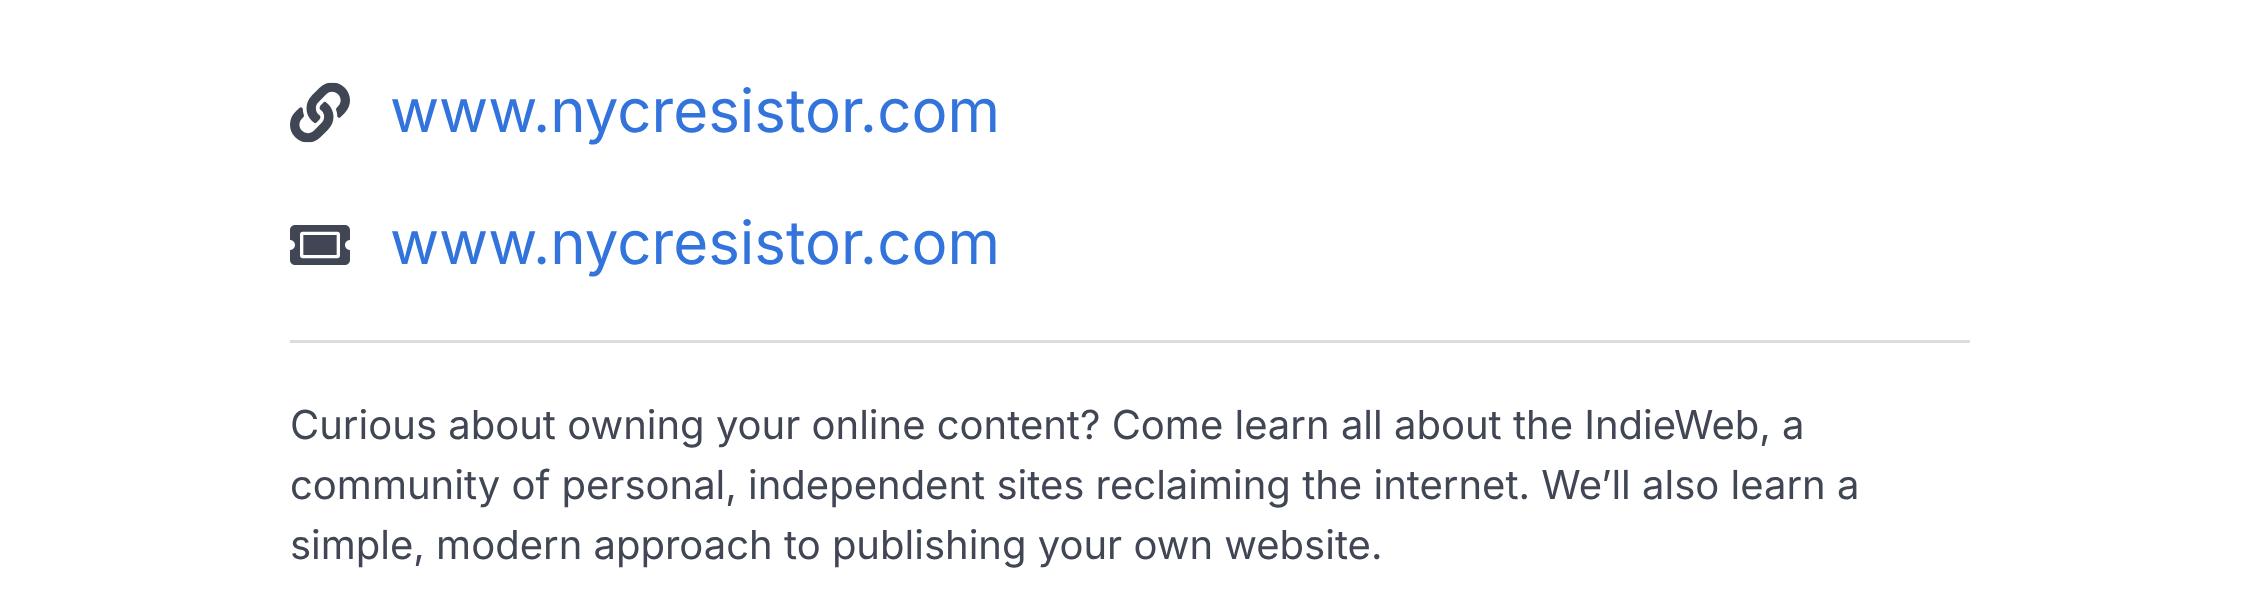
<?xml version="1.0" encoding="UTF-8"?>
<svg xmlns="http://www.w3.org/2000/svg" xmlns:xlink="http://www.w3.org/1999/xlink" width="2260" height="592">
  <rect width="100%" height="100%" fill="#ffffff" />
  <image x="290" y="82" width="60" height="61" xlink:href="image1.png" />
  <image x="290" y="225" width="60" height="40" xlink:href="image2.png" />
  <rect x="290" y="340" width="1680" height="3" fill="#dddddd" />
  <text x="390" y="132" style="font-family: Inter; font-size: 60px; fill: #3273dc">www.nycresistor.com</text>
  <text x="390" y="264" style="font-family: Inter; font-size: 60px; fill: #3273dc">www.nycresistor.com</text>
  <text x="290" y="439" style="font-family: Inter; font-size: 40px; fill: #404654">Curious about owning your online content? Come learn all about the IndieWeb, a</text>
  <text x="290" y="499" style="font-family: Inter; font-size: 40px; fill: #404654">community of personal, independent sites reclaiming the internet. We’ll also learn a</text>
  <text x="290" y="559" style="font-family: Inter; font-size: 40px; fill: #404654">simple, modern approach to publishing your own website.</text>
</svg>
